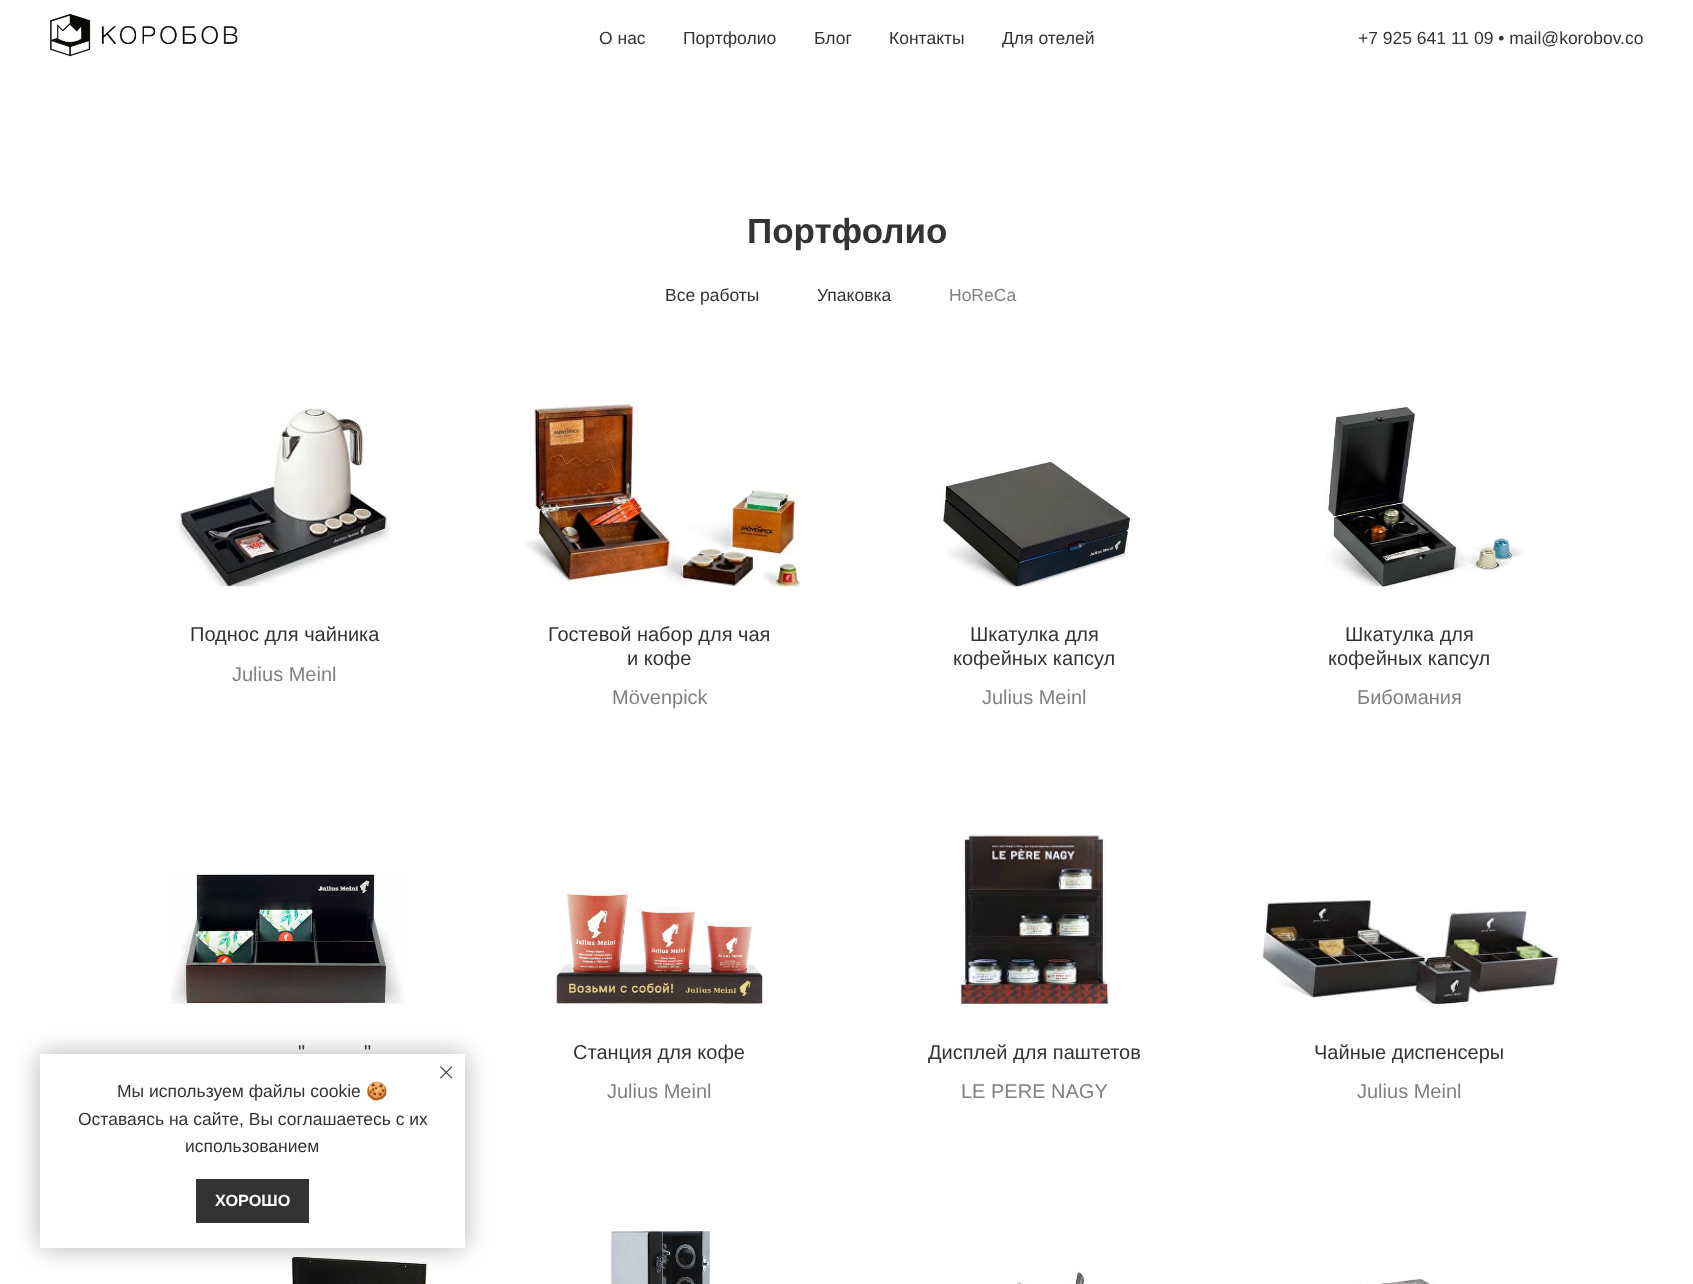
<?xml version="1.0" encoding="UTF-8"?>
<svg xmlns="http://www.w3.org/2000/svg" xmlns:xlink="http://www.w3.org/1999/xlink" width="1693" height="1284">
  <rect width="100%" height="100%" fill="#ffffff" />
  <image x="50" y="13" width="188" height="44" xlink:href="image1.png" />
  <image x="176" y="408" width="215" height="179" xlink:href="image2.png" />
  <image x="525" y="404" width="276" height="183" xlink:href="image3.png" />
  <image x="942" y="461" width="191" height="126" xlink:href="image4.png" />
  <image x="1325" y="406" width="200" height="181" xlink:href="image5.png" />
  <image x="170" y="874" width="236" height="130" xlink:href="image6.png" />
  <image x="554" y="892" width="212" height="112" xlink:href="image7.png" />
  <image x="956" y="835" width="158" height="169" xlink:href="image8.png" />
  <image x="1262" y="898" width="298" height="106" xlink:href="image9.png" />
  <image x="291" y="1255" width="139" height="29" xlink:href="image10.png" />
  <image x="610" y="1231" width="100" height="53" xlink:href="image11.png" />
  <image x="1016" y="1270" width="69" height="14" xlink:href="image12.png" />
  <image x="1355" y="1279" width="79" height="5" xlink:href="image13.png" />
  <rect x="40" y="1054" width="425" height="194" fill="#000000" fill-opacity="0.3" filter="blur(12.5px)" />
  <rect x="40" y="1054" width="425" height="194" fill="#ffffff" />
  <image x="440" y="1066" width="13" height="13" xlink:href="image14.png" />
  <rect x="196" y="1179" width="113" height="44" fill="#333333" />
  <text x="599" y="44" style="font-family: Liberation Sans; font-size: 17.5px; fill: #333333">О нас</text>
  <text x="683" y="44" style="font-family: Liberation Sans; font-size: 17.5px; fill: #333333">Портфолио</text>
  <text x="814" y="44" style="font-family: Liberation Sans; font-size: 17.5px; fill: #333333">Блог</text>
  <text x="889" y="44" style="font-family: Liberation Sans; font-size: 17.5px; fill: #333333">Контакты</text>
  <text x="1002" y="44" style="font-family: Liberation Sans; font-size: 17.5px; fill: #333333">Для отелей</text>
  <text x="1358" y="44" style="font-family: Liberation Sans; font-size: 17.5px; fill: #333333">+7 925 641 11 09 • mail@korobov.co</text>
  <text x="747" y="243" style="font-family: Liberation Sans; font-size: 35px; font-weight: bold; fill: #333333">Портфолио</text>
  <text x="665" y="301" style="font-family: Liberation Sans; font-size: 17.5px; fill: #333333">Все работы</text>
  <text x="817" y="301" style="font-family: Liberation Sans; font-size: 17.5px; fill: #333333">Упаковка</text>
  <text x="949" y="301" style="font-family: Liberation Sans; font-size: 17.5px; fill: #808080">HoReCa</text>
  <text x="190" y="641" style="font-family: Liberation Sans; font-size: 20px; fill: #333333">Поднос для чайника</text>
  <text x="232" y="681" style="font-family: Liberation Sans; font-size: 20px; fill: #808080">Julius Meinl</text>
  <text x="548" y="641" style="font-family: Liberation Sans; font-size: 20px; fill: #333333">Гостевой набор для чая</text>
  <text x="627" y="665" style="font-family: Liberation Sans; font-size: 20px; fill: #333333">и кофе</text>
  <text x="612" y="704" style="font-family: Liberation Sans; font-size: 20px; fill: #808080">Mövenpick</text>
  <text x="970" y="641" style="font-family: Liberation Sans; font-size: 20px; fill: #333333">Шкатулка для</text>
  <text x="953" y="665" style="font-family: Liberation Sans; font-size: 20px; fill: #333333">кофейных капсул</text>
  <text x="982" y="704" style="font-family: Liberation Sans; font-size: 20px; fill: #808080">Julius Meinl</text>
  <text x="1345" y="641" style="font-family: Liberation Sans; font-size: 20px; fill: #333333">Шкатулка для</text>
  <text x="1328" y="665" style="font-family: Liberation Sans; font-size: 20px; fill: #333333">кофейных капсул</text>
  <text x="1357" y="704" style="font-family: Liberation Sans; font-size: 20px; fill: #808080">Бибомания</text>
  <text x="298" y="1059" style="font-family: Liberation Sans; font-size: 20px; fill: #333333">"</text>
  <text x="364" y="1059" style="font-family: Liberation Sans; font-size: 20px; fill: #333333">"</text>
  <text x="573" y="1059" style="font-family: Liberation Sans; font-size: 20px; fill: #333333">Станция для кофе</text>
  <text x="607" y="1098" style="font-family: Liberation Sans; font-size: 20px; fill: #808080">Julius Meinl</text>
  <text x="928" y="1059" style="font-family: Liberation Sans; font-size: 20px; fill: #333333">Дисплей для паштетов</text>
  <text x="961" y="1098" style="font-family: Liberation Sans; font-size: 20px; fill: #808080">LE PERE NAGY</text>
  <text x="1314" y="1059" style="font-family: Liberation Sans; font-size: 20px; fill: #333333">Чайные диспенсеры</text>
  <text x="1357" y="1098" style="font-family: Liberation Sans; font-size: 20px; fill: #808080">Julius Meinl</text>
  <text x="117" y="1097" style="font-family: Liberation Sans; font-size: 17.5px; fill: #333333">Мы используем файлы cookie</text>
  <text x="366" y="1097" style="font-family: Noto Color Emoji; font-size: 17.5px; fill: #333333">🍪</text>
  <text x="78" y="1125" style="font-family: Liberation Sans; font-size: 17.5px; fill: #333333">Оставаясь на сайте, Вы соглашаетесь с их</text>
  <text x="185" y="1152" style="font-family: Liberation Sans; font-size: 17.5px; fill: #333333">использованием</text>
  <text x="215" y="1206" style="font-family: Liberation Sans; font-size: 16.25px; font-weight: bold; fill: #ffffff">ХОРОШО</text>
</svg>
